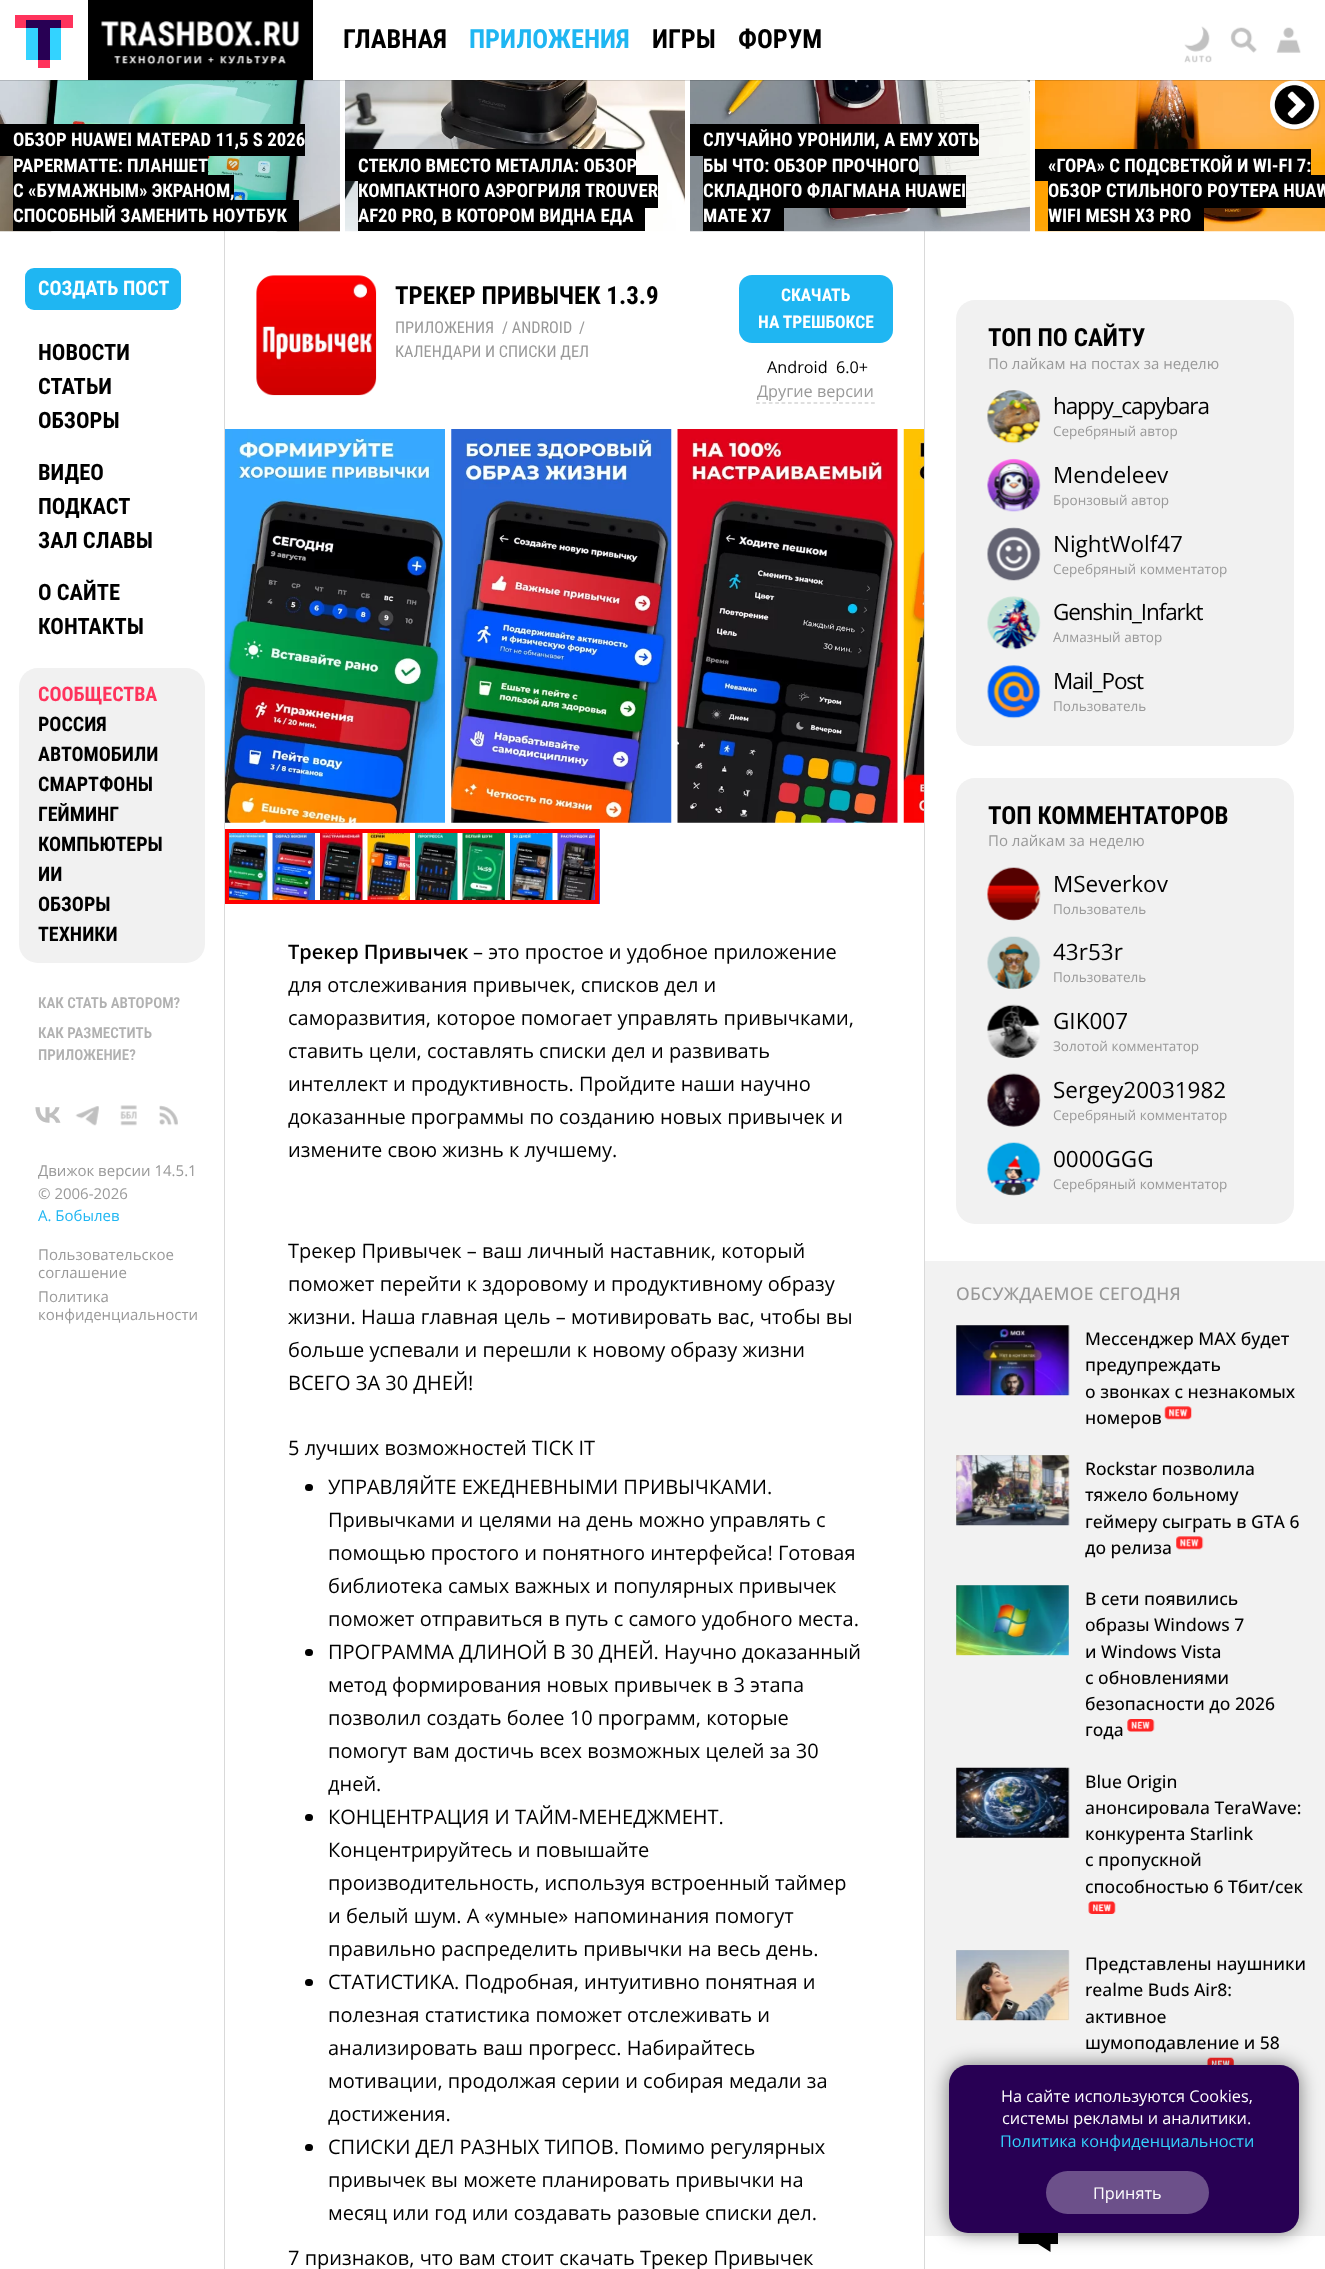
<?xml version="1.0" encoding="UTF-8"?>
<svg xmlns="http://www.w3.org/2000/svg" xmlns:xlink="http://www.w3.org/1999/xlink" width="1325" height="2269">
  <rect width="100%" height="100%" fill="#ffffff" />
  <rect x="15" y="15" width="58" height="13" fill="#ff335c" />
  <rect x="26" y="20" width="35" height="8" fill="#280054" />
  <rect x="38" y="28" width="12" height="40" fill="#ff335c" />
  <rect x="26" y="28" width="35" height="32" fill="#33d3ff" />
  <rect x="38" y="28" width="12" height="32" fill="#280054" />
  <rect x="88" width="225" height="80" fill="#000000" />
  <image x="101" y="21" width="198" height="44" xlink:href="image1.png" />
  <image x="1184" y="26" width="28" height="37" xlink:href="image2.png" />
  <image x="1230" y="27" width="27" height="26" xlink:href="image3.png" />
  <image x="1276" y="27" width="25" height="26" xlink:href="image4.png" />
  <image x="1035" y="80" width="290" height="152" xlink:href="image9.png" />
  <image x="1270" y="80" width="51" height="51" xlink:href="image5.png" />
  <image x="0" y="80" width="340" height="152" xlink:href="image6.png" />
  <image x="345" y="80" width="340" height="152" xlink:href="image7.png" />
  <rect x="924" y="231" width="1" height="2038" fill="#d9d9d9" />
  <image x="690" y="80" width="340" height="152" xlink:href="image8.png" />
  <rect y="80" width="1325" height="1" fill="#000000" fill-opacity="0.15" />
  <rect y="124" width="305" height="32" fill="#000000" />
  <rect x="13" y="156" width="195" height="19" fill="#000000" />
  <rect x="13" y="175" width="221" height="25" fill="#000000" />
  <rect x="13" y="200" width="286" height="31" fill="#000000" />
  <rect x="345" y="149" width="291" height="32" fill="#000000" />
  <rect x="358" y="175" width="300" height="33" fill="#000000" />
  <rect x="358" y="208" width="287" height="23" fill="#000000" />
  <rect x="690" y="124" width="289" height="32" fill="#000000" />
  <rect x="703" y="156" width="216" height="19" fill="#000000" />
  <rect x="703" y="175" width="263" height="33" fill="#000000" />
  <rect x="703" y="208" width="81" height="23" fill="#000000" />
  <rect x="1035" y="149" width="276" height="32" fill="#000000" />
  <rect x="1048" y="175" width="277" height="33" fill="#000000" />
  <rect x="1048" y="208" width="156" height="23" fill="#000000" />
  <rect x="224" y="231" width="1" height="2038" fill="#000000" fill-opacity="0.15" />
  <rect x="25" y="268" width="156" height="42" rx="9" fill="#1fb6f2" />
  <rect x="19" y="668" width="186" height="295" rx="19" fill="#f1f1f1" />
  <image x="35" y="1107" width="26" height="16" xlink:href="image10.png" />
  <image x="75" y="1106" width="24" height="20" xlink:href="image11.png" />
  <image x="120" y="1105" width="17" height="21" xlink:href="image12.png" />
  <image x="159" y="1105" width="19" height="21" xlink:href="image13.png" />
  <image x="256" y="275" width="121" height="121" xlink:href="image14.png" />
  <rect x="739" y="275" width="154" height="68" rx="13" fill="#1fb6f2" />
  <path d="M 756 403 h 119" fill="none" stroke="#c0c0c0" stroke-width="1.2" stroke-dasharray="3.75 2.64" />
  <image x="225" y="429" width="220" height="394" xlink:href="image15.png" />
  <image x="451" y="429" width="221" height="394" xlink:href="image16.png" />
  <image x="677" y="429" width="221" height="394" xlink:href="image17.png" />
  <image x="903" y="429" width="21" height="394" xlink:href="image18.png" />
  <image x="229" y="833" width="39" height="67" xlink:href="image19.png" />
  <image x="272" y="833" width="43" height="67" xlink:href="image20.png" />
  <image x="320" y="833" width="43" height="67" xlink:href="image21.png" />
  <image x="367" y="833" width="43" height="67" xlink:href="image22.png" />
  <image x="415" y="833" width="43" height="67" xlink:href="image23.png" />
  <image x="462" y="833" width="43" height="67" xlink:href="image24.png" />
  <image x="510" y="833" width="43" height="67" xlink:href="image25.png" />
  <image x="557" y="829" width="43" height="75" xlink:href="image26.png" />
  <rect x="227" y="831" width="370" height="71" fill="none" stroke="#ff0000" stroke-width="4" />
  <rect x="305" y="1484" width="8" height="7" rx="3.5" fill="#000000" />
  <rect x="305" y="1649" width="8" height="7" rx="3.5" fill="#000000" />
  <rect x="305" y="1814" width="8" height="7" rx="3.5" fill="#000000" />
  <rect x="305" y="1979" width="8" height="7" rx="3.5" fill="#000000" />
  <rect x="305" y="2144" width="8" height="7" rx="3.5" fill="#000000" />
  <rect x="925" y="1261" width="400" height="975" fill="#f2f2f2" />
  <path d="M 1058 2220 h -39.5 v 24 h 19.5 l 12.5 8 v -8 h 7.5 z" fill="#000000" />
  <rect x="956" y="300" width="338" height="446" rx="19" fill="#f1f1f1" />
  <image x="987" y="390" width="54" height="54" xlink:href="image27.png" />
  <image x="987" y="458" width="54" height="54" xlink:href="image28.png" />
  <image x="987" y="527" width="54" height="54" xlink:href="image29.png" />
  <image x="987" y="596" width="54" height="54" xlink:href="image30.png" />
  <image x="987" y="665" width="54" height="54" xlink:href="image31.png" />
  <rect x="956" y="778" width="338" height="446" rx="19" fill="#f1f1f1" />
  <image x="987" y="867" width="54" height="54" xlink:href="image32.png" />
  <image x="987" y="936" width="54" height="54" xlink:href="image33.png" />
  <image x="987" y="1004" width="53" height="54" xlink:href="image34.png" />
  <image x="987" y="1073" width="54" height="54" xlink:href="image35.png" />
  <image x="987" y="1142" width="54" height="54" xlink:href="image36.png" />
  <image x="956" y="1325" width="114" height="71" xlink:href="image37.png" />
  <rect x="956.5" y="1325.5" width="112" height="69" fill="none" stroke="#000000" stroke-opacity="0.05" />
  <image x="1164" y="1406" width="28" height="14" xlink:href="image38.png" />
  <image x="956" y="1455" width="114" height="71" xlink:href="image39.png" />
  <rect x="956.5" y="1455.5" width="112" height="69" fill="none" stroke="#000000" stroke-opacity="0.05" />
  <image x="1176" y="1536" width="28" height="14" xlink:href="image40.png" />
  <image x="956" y="1585" width="113" height="71" xlink:href="image41.png" />
  <rect x="956.5" y="1585.5" width="112" height="69" fill="none" stroke="#000000" stroke-opacity="0.05" />
  <image x="1127" y="1719" width="28" height="13" xlink:href="image42.png" />
  <image x="956" y="1767" width="114" height="71" xlink:href="image43.png" />
  <rect x="956.5" y="1768.5" width="112" height="69" fill="none" stroke="#000000" stroke-opacity="0.05" />
  <image x="1088" y="1901" width="28" height="13" xlink:href="image44.png" />
  <image x="956" y="1950" width="114" height="71" xlink:href="image45.png" />
  <rect x="956.5" y="1950.5" width="112" height="69" fill="none" stroke="#000000" stroke-opacity="0.05" />
  <image x="1207" y="2057" width="27" height="8" xlink:href="image46.png" />
  <rect x="949" y="2065" width="350" height="168" rx="19" fill="#000000" fill-opacity="0.5" filter="blur(9.5px)" />
  <rect x="949" y="2065" width="350" height="168" rx="19" fill="#280054" />
  <rect x="1046" y="2171" width="163" height="43" rx="21.5" fill="#6c508a" />
  <text x="343" y="48" style="font-family: Roboto Condensed; font-size: 26.25px; font-weight: bold; fill: #000000">ГЛАВНАЯ</text>
  <text x="469" y="48" style="font-family: Roboto Condensed; font-size: 26.25px; font-weight: bold; fill: #1fb6f2">ПРИЛОЖЕНИЯ</text>
  <text x="652" y="48" style="font-family: Roboto Condensed; font-size: 26.25px; font-weight: bold; fill: #000000">ИГРЫ</text>
  <text x="738" y="48" style="font-family: Roboto Condensed; font-size: 26.25px; font-weight: bold; fill: #000000">ФОРУМ</text>
  <text x="13" y="146" style="font-family: Roboto Condensed; font-size: 18.75px; font-weight: bold; fill: #ffffff">ОБЗОР HUAWEI MATEPAD 11,5 S 2026</text>
  <text x="13" y="172" style="font-family: Roboto Condensed; font-size: 18.75px; font-weight: bold; fill: #ffffff">PAPERMATTE: ПЛАНШЕТ</text>
  <text x="13" y="197" style="font-family: Roboto Condensed; font-size: 18.75px; font-weight: bold; fill: #ffffff">С «БУМАЖНЫМ» ЭКРАНОМ,</text>
  <text x="13" y="222" style="font-family: Roboto Condensed; font-size: 18.75px; font-weight: bold; fill: #ffffff">СПОСОБНЫЙ ЗАМЕНИТЬ НОУТБУК</text>
  <text x="358" y="172" style="font-family: Roboto Condensed; font-size: 18.75px; font-weight: bold; fill: #ffffff">СТЕКЛО ВМЕСТО МЕТАЛЛА: ОБЗОР</text>
  <text x="358" y="197" style="font-family: Roboto Condensed; font-size: 18.75px; font-weight: bold; fill: #ffffff">КОМПАКТНОГО АЭРОГРИЛЯ TROUVER</text>
  <text x="358" y="222" style="font-family: Roboto Condensed; font-size: 18.75px; font-weight: bold; fill: #ffffff">AF20 PRO, В КОТОРОМ ВИДНА ЕДА</text>
  <text x="703" y="146" style="font-family: Roboto Condensed; font-size: 18.75px; font-weight: bold; fill: #ffffff">СЛУЧАЙНО УРОНИЛИ, А ЕМУ ХОТЬ</text>
  <text x="703" y="172" style="font-family: Roboto Condensed; font-size: 18.75px; font-weight: bold; fill: #ffffff">БЫ ЧТО: ОБЗОР ПРОЧНОГО</text>
  <text x="703" y="197" style="font-family: Roboto Condensed; font-size: 18.75px; font-weight: bold; fill: #ffffff">СКЛАДНОГО ФЛАГМАНА HUAWEI</text>
  <text x="703" y="222" style="font-family: Roboto Condensed; font-size: 18.75px; font-weight: bold; fill: #ffffff">MATE X7</text>
  <text x="1048" y="172" style="font-family: Roboto Condensed; font-size: 18.75px; font-weight: bold; fill: #ffffff">«ГОРА» С ПОДСВЕТКОЙ И WI-FI 7:</text>
  <text x="1048" y="197" style="font-family: Roboto Condensed; font-size: 18.75px; font-weight: bold; fill: #ffffff">ОБЗОР СТИЛЬНОГО РОУТЕРА HUAW</text>
  <text x="1048" y="222" style="font-family: Roboto Condensed; font-size: 18.75px; font-weight: bold; fill: #ffffff">WIFI MESH X3 PRO</text>
  <text x="38" y="295" style="font-family: Roboto Condensed; font-size: 20px; font-weight: bold; fill: #ffffff">СОЗДАТЬ ПОСТ</text>
  <text x="38" y="360" style="font-family: Roboto Condensed; font-size: 22.5px; font-weight: bold; fill: #000000">НОВОСТИ</text>
  <text x="38" y="394" style="font-family: Roboto Condensed; font-size: 22.5px; font-weight: bold; fill: #000000">СТАТЬИ</text>
  <text x="38" y="428" style="font-family: Roboto Condensed; font-size: 22.5px; font-weight: bold; fill: #000000">ОБЗОРЫ</text>
  <text x="38" y="480" style="font-family: Roboto Condensed; font-size: 22.5px; font-weight: bold; fill: #000000">ВИДЕО</text>
  <text x="38" y="514" style="font-family: Roboto Condensed; font-size: 22.5px; font-weight: bold; fill: #000000">ПОДКАСТ</text>
  <text x="38" y="548" style="font-family: Roboto Condensed; font-size: 22.5px; font-weight: bold; fill: #000000">ЗАЛ СЛАВЫ</text>
  <text x="38" y="600" style="font-family: Roboto Condensed; font-size: 22.5px; font-weight: bold; fill: #000000">О САЙТЕ</text>
  <text x="38" y="634" style="font-family: Roboto Condensed; font-size: 22.5px; font-weight: bold; fill: #000000">КОНТАКТЫ</text>
  <text x="38" y="701" style="font-family: Roboto Condensed; font-size: 20px; font-weight: bold; fill: #ff335c">СООБЩЕСТВА</text>
  <text x="38" y="731" style="font-family: Roboto Condensed; font-size: 20px; font-weight: bold; fill: #000000">РОССИЯ</text>
  <text x="38" y="761" style="font-family: Roboto Condensed; font-size: 20px; font-weight: bold; fill: #000000">АВТОМОБИЛИ</text>
  <text x="38" y="791" style="font-family: Roboto Condensed; font-size: 20px; font-weight: bold; fill: #000000">СМАРТФОНЫ</text>
  <text x="38" y="821" style="font-family: Roboto Condensed; font-size: 20px; font-weight: bold; fill: #000000">ГЕЙМИНГ</text>
  <text x="38" y="851" style="font-family: Roboto Condensed; font-size: 20px; font-weight: bold; fill: #000000">КОМПЬЮТЕРЫ</text>
  <text x="38" y="881" style="font-family: Roboto Condensed; font-size: 20px; font-weight: bold; fill: #000000">ИИ</text>
  <text x="38" y="911" style="font-family: Roboto Condensed; font-size: 20px; font-weight: bold; fill: #000000">ОБЗОРЫ</text>
  <text x="38" y="941" style="font-family: Roboto Condensed; font-size: 20px; font-weight: bold; fill: #000000">ТЕХНИКИ</text>
  <text x="38" y="1008" style="font-family: Roboto Condensed; font-size: 15px; font-weight: 600; fill: #b1b1b1">КАК СТАТЬ АВТОРОМ?</text>
  <text x="38" y="1038" style="font-family: Roboto Condensed; font-size: 15px; font-weight: 600; fill: #b1b1b1">КАК РАЗМЕСТИТЬ</text>
  <text x="38" y="1060" style="font-family: Roboto Condensed; font-size: 15px; font-weight: 600; fill: #b1b1b1">ПРИЛОЖЕНИЕ?</text>
  <text x="38" y="1176" style="font-family: Open Sans; font-size: 15px; fill: #999999">Движок версии 14.5.1</text>
  <text x="38" y="1199" style="font-family: Open Sans; font-size: 15px; fill: #999999">© 2006-2026</text>
  <text x="38" y="1221" style="font-family: Open Sans; font-size: 15px; fill: #1fb6f2">А. Бобылев</text>
  <text x="38" y="1260" style="font-family: Open Sans; font-size: 15px; fill: #999999">Пользовательское</text>
  <text x="38" y="1278" style="font-family: Open Sans; font-size: 15px; fill: #999999">соглашение</text>
  <text x="38" y="1302" style="font-family: Open Sans; font-size: 15px; fill: #999999">Политика</text>
  <text x="38" y="1320" style="font-family: Open Sans; font-size: 15px; fill: #999999">конфиденциальности</text>
  <text x="395" y="304" style="font-family: Roboto Condensed; font-size: 25px; font-weight: bold; fill: #000000">ТРЕКЕР ПРИВЫЧЕК 1.3.9</text>
  <text x="395" y="333" style="font-family: Roboto Condensed; font-size: 16.25px; fill: #999999">ПРИЛОЖЕНИЯ</text>
  <text x="502" y="333" style="font-family: Roboto Condensed; font-size: 16.25px; fill: #999999">/ ANDROID</text>
  <text x="579" y="333" style="font-family: Roboto Condensed; font-size: 16.25px; fill: #999999">/</text>
  <text x="395" y="357" style="font-family: Roboto Condensed; font-size: 16.25px; fill: #999999">КАЛЕНДАРИ И СПИСКИ ДЕЛ</text>
  <text x="781" y="301" style="font-family: Roboto Condensed; font-size: 17.5px; font-weight: bold; fill: #ffffff">СКАЧАТЬ</text>
  <text x="758" y="328" style="font-family: Roboto Condensed; font-size: 17.5px; font-weight: bold; fill: #ffffff">НА ТРЕШБОКСЕ</text>
  <text x="767" y="373" style="font-family: Open Sans; font-size: 16.25px; fill: #000000">Android</text>
  <text x="836" y="373" style="font-family: Open Sans; font-size: 16.25px; fill: #000000">6.0+</text>
  <text x="757" y="397" style="font-family: Open Sans; font-size: 16.25px; fill: #999999">Другие версии</text>
  <text x="288" y="959" style="font-family: Open Sans; font-size: 20px; font-weight: 600; fill: #000000">Трекер Привычек</text>
  <text x="473" y="959" style="font-family: Open Sans; font-size: 20px; fill: #000000">– это простое и удобное приложение</text>
  <text x="288" y="992" style="font-family: Open Sans; font-size: 20px; fill: #000000">для отслеживания привычек, списков дел и</text>
  <text x="288" y="1025" style="font-family: Open Sans; font-size: 20px; fill: #000000">саморазвития, которое помогает управлять привычками,</text>
  <text x="288" y="1058" style="font-family: Open Sans; font-size: 20px; fill: #000000">ставить цели, составлять списки дел и развивать</text>
  <text x="288" y="1091" style="font-family: Open Sans; font-size: 20px; fill: #000000">интеллект и продуктивность. Пройдите наши научно</text>
  <text x="288" y="1124" style="font-family: Open Sans; font-size: 20px; fill: #000000">доказанные программы по созданию новых привычек и</text>
  <text x="288" y="1157" style="font-family: Open Sans; font-size: 20px; fill: #000000">измените свою жизнь к лучшему.</text>
  <text x="288" y="1258" style="font-family: Open Sans; font-size: 20px; fill: #000000">Трекер Привычек – ваш личный наставник, который</text>
  <text x="288" y="1291" style="font-family: Open Sans; font-size: 20px; fill: #000000">поможет перейти к здоровому и продуктивному образу</text>
  <text x="288" y="1324" style="font-family: Open Sans; font-size: 20px; fill: #000000">жизни. Наша главная цель – мотивировать вас, чтобы вы</text>
  <text x="288" y="1357" style="font-family: Open Sans; font-size: 20px; fill: #000000">больше успевали и перешли к новому образу жизни</text>
  <text x="288" y="1390" style="font-family: Open Sans; font-size: 20px; fill: #000000">ВСЕГО ЗА 30 ДНЕЙ!</text>
  <text x="288" y="1455" style="font-family: Open Sans; font-size: 20px; fill: #000000">5 лучших возможностей TICK IT</text>
  <text x="328" y="1494" style="font-family: Open Sans; font-size: 20px; fill: #000000">УПРАВЛЯЙТЕ ЕЖЕДНЕВНЫМИ ПРИВЫЧКАМИ.</text>
  <text x="328" y="1527" style="font-family: Open Sans; font-size: 20px; fill: #000000">Привычками и целями на день можно управлять с</text>
  <text x="328" y="1560" style="font-family: Open Sans; font-size: 20px; fill: #000000">помощью простого и понятного интерфейса! Готовая</text>
  <text x="328" y="1593" style="font-family: Open Sans; font-size: 20px; fill: #000000">библиотека самых важных и популярных привычек</text>
  <text x="328" y="1626" style="font-family: Open Sans; font-size: 20px; fill: #000000">поможет отправиться в путь с самого удобного места.</text>
  <text x="328" y="1659" style="font-family: Open Sans; font-size: 20px; fill: #000000">ПРОГРАММА ДЛИНОЙ В 30 ДНЕЙ. Научно доказанный</text>
  <text x="328" y="1692" style="font-family: Open Sans; font-size: 20px; fill: #000000">метод формирования новых привычек в 3 этапа</text>
  <text x="328" y="1725" style="font-family: Open Sans; font-size: 20px; fill: #000000">позволил создать более 10 программ, которые</text>
  <text x="328" y="1758" style="font-family: Open Sans; font-size: 20px; fill: #000000">помогут вам достичь всех возможных целей за 30</text>
  <text x="328" y="1791" style="font-family: Open Sans; font-size: 20px; fill: #000000">дней.</text>
  <text x="328" y="1824" style="font-family: Open Sans; font-size: 20px; fill: #000000">КОНЦЕНТРАЦИЯ И ТАЙМ-МЕНЕДЖМЕНТ.</text>
  <text x="328" y="1857" style="font-family: Open Sans; font-size: 20px; fill: #000000">Концентрируйтесь и повышайте</text>
  <text x="328" y="1890" style="font-family: Open Sans; font-size: 20px; fill: #000000">производительность, используя встроенный таймер</text>
  <text x="328" y="1923" style="font-family: Open Sans; font-size: 20px; fill: #000000">и белый шум. А «умные» напоминания помогут</text>
  <text x="328" y="1956" style="font-family: Open Sans; font-size: 20px; fill: #000000">правильно распределить привычки на весь день.</text>
  <text x="328" y="1989" style="font-family: Open Sans; font-size: 20px; fill: #000000">СТАТИСТИКА. Подробная, интуитивно понятная и</text>
  <text x="328" y="2022" style="font-family: Open Sans; font-size: 20px; fill: #000000">полезная статистика поможет отслеживать и</text>
  <text x="328" y="2055" style="font-family: Open Sans; font-size: 20px; fill: #000000">анализировать ваш прогресс. Набирайтесь</text>
  <text x="328" y="2088" style="font-family: Open Sans; font-size: 20px; fill: #000000">мотивации, продолжая серии и собирая медали за</text>
  <text x="328" y="2121" style="font-family: Open Sans; font-size: 20px; fill: #000000">достижения.</text>
  <text x="328" y="2154" style="font-family: Open Sans; font-size: 20px; fill: #000000">СПИСКИ ДЕЛ РАЗНЫХ ТИПОВ. Помимо регулярных</text>
  <text x="328" y="2187" style="font-family: Open Sans; font-size: 20px; fill: #000000">привычек вы можете планировать привычки на</text>
  <text x="328" y="2220" style="font-family: Open Sans; font-size: 20px; fill: #000000">месяц или год или создавать разовые списки дел.</text>
  <text x="288" y="2265" style="font-family: Open Sans; font-size: 20px; fill: #000000">7 признаков, что вам стоит скачать Трекер Привычек</text>
  <text x="988" y="346" style="font-family: Roboto Condensed; font-size: 25px; font-weight: bold; fill: #000000">ТОП ПО САЙТУ</text>
  <text x="988" y="369" style="font-family: Open Sans; font-size: 15px; fill: #999999">По лайкам на постах за неделю</text>
  <text x="1053" y="414" style="font-family: Open Sans; font-size: 22.5px; letter-spacing: -1.1px; fill: #000000">happy_capybara</text>
  <text x="1053" y="436" style="font-family: Open Sans; font-size: 13.5px; fill: #999999">Серебряный автор</text>
  <text x="1053" y="483" style="font-family: Open Sans; font-size: 22.5px; fill: #000000">Mendeleev</text>
  <text x="1053" y="505" style="font-family: Open Sans; font-size: 13.5px; fill: #999999">Бронзовый автор</text>
  <text x="1053" y="552" style="font-family: Open Sans; font-size: 22.5px; fill: #000000">NightWolf47</text>
  <text x="1053" y="574" style="font-family: Open Sans; font-size: 13.5px; fill: #999999">Серебряный комментатор</text>
  <text x="1053" y="620" style="font-family: Open Sans; font-size: 22.5px; letter-spacing: -1.1px; fill: #000000">Genshin_Infarkt</text>
  <text x="1053" y="642" style="font-family: Open Sans; font-size: 13.5px; fill: #999999">Алмазный автор</text>
  <text x="1053" y="689" style="font-family: Open Sans; font-size: 22.5px; letter-spacing: -1.1px; fill: #000000">Mail_Post</text>
  <text x="1053" y="711" style="font-family: Open Sans; font-size: 13.5px; fill: #999999">Пользователь</text>
  <text x="988" y="824" style="font-family: Roboto Condensed; font-size: 25px; font-weight: bold; fill: #000000">ТОП КОММЕНТАТОРОВ</text>
  <text x="988" y="846" style="font-family: Open Sans; font-size: 15px; fill: #999999">По лайкам за неделю</text>
  <text x="1053" y="892" style="font-family: Open Sans; font-size: 22.5px; fill: #000000">MSeverkov</text>
  <text x="1053" y="914" style="font-family: Open Sans; font-size: 13.5px; fill: #999999">Пользователь</text>
  <text x="1053" y="960" style="font-family: Open Sans; font-size: 22.5px; fill: #000000">43r53r</text>
  <text x="1053" y="982" style="font-family: Open Sans; font-size: 13.5px; fill: #999999">Пользователь</text>
  <text x="1053" y="1029" style="font-family: Open Sans; font-size: 22.5px; fill: #000000">GIK007</text>
  <text x="1053" y="1051" style="font-family: Open Sans; font-size: 13.5px; fill: #999999">Золотой комментатор</text>
  <text x="1053" y="1098" style="font-family: Open Sans; font-size: 22.5px; fill: #000000">Sergey20031982</text>
  <text x="1053" y="1120" style="font-family: Open Sans; font-size: 13.5px; fill: #999999">Серебряный комментатор</text>
  <text x="1053" y="1167" style="font-family: Open Sans; font-size: 22.5px; fill: #000000">0000GGG</text>
  <text x="1053" y="1189" style="font-family: Open Sans; font-size: 13.5px; fill: #999999">Серебряный комментатор</text>
  <text x="956" y="1300" style="font-family: Open Sans; font-size: 17.5px; font-weight: 500; letter-spacing: 0.3px; fill: #999999">ОБСУЖДАЕМОЕ СЕГОДНЯ</text>
  <text x="1085" y="1345" style="font-family: Open Sans; font-size: 17.5px; font-weight: 500; fill: #000000">Мессенджер MAХ будет</text>
  <text x="1085" y="1371" style="font-family: Open Sans; font-size: 17.5px; font-weight: 500; fill: #000000">предупреждать</text>
  <text x="1085" y="1398" style="font-family: Open Sans; font-size: 17.5px; font-weight: 500; fill: #000000">о звонках с незнакомых</text>
  <text x="1085" y="1424" style="font-family: Open Sans; font-size: 17.5px; font-weight: 500; fill: #000000">номеров</text>
  <text x="1085" y="1475" style="font-family: Open Sans; font-size: 17.5px; font-weight: 500; fill: #000000">Rockstar позволила</text>
  <text x="1085" y="1501" style="font-family: Open Sans; font-size: 17.5px; font-weight: 500; fill: #000000">тяжело больному</text>
  <text x="1085" y="1528" style="font-family: Open Sans; font-size: 17.5px; font-weight: 500; fill: #000000">геймеру сыграть в GTA 6</text>
  <text x="1085" y="1554" style="font-family: Open Sans; font-size: 17.5px; font-weight: 500; fill: #000000">до релиза</text>
  <text x="1085" y="1605" style="font-family: Open Sans; font-size: 17.5px; font-weight: 500; fill: #000000">В сети появились</text>
  <text x="1085" y="1631" style="font-family: Open Sans; font-size: 17.5px; font-weight: 500; fill: #000000">образы Windows 7</text>
  <text x="1085" y="1658" style="font-family: Open Sans; font-size: 17.5px; font-weight: 500; fill: #000000">и Windows Vista</text>
  <text x="1085" y="1684" style="font-family: Open Sans; font-size: 17.5px; font-weight: 500; fill: #000000">с обновлениями</text>
  <text x="1085" y="1710" style="font-family: Open Sans; font-size: 17.5px; font-weight: 500; fill: #000000">безопасности до 2026</text>
  <text x="1085" y="1736" style="font-family: Open Sans; font-size: 17.5px; font-weight: 500; fill: #000000">года</text>
  <text x="1085" y="1788" style="font-family: Open Sans; font-size: 17.5px; font-weight: 500; fill: #000000">Blue Origin</text>
  <text x="1085" y="1814" style="font-family: Open Sans; font-size: 17.5px; font-weight: 500; fill: #000000">анонсировала TeraWave:</text>
  <text x="1085" y="1840" style="font-family: Open Sans; font-size: 17.5px; font-weight: 500; fill: #000000">конкурента Starlink</text>
  <text x="1085" y="1866" style="font-family: Open Sans; font-size: 17.5px; font-weight: 500; fill: #000000">с пропускной</text>
  <text x="1085" y="1893" style="font-family: Open Sans; font-size: 17.5px; font-weight: 500; fill: #000000">способностью 6 Тбит/сек</text>
  <text x="1085" y="1970" style="font-family: Open Sans; font-size: 17.5px; font-weight: 500; fill: #000000">Представлены наушники</text>
  <text x="1085" y="1996" style="font-family: Open Sans; font-size: 17.5px; font-weight: 500; fill: #000000">realme Buds Air8:</text>
  <text x="1085" y="2023" style="font-family: Open Sans; font-size: 17.5px; font-weight: 500; fill: #000000">активное</text>
  <text x="1085" y="2049" style="font-family: Open Sans; font-size: 17.5px; font-weight: 500; fill: #000000">шумоподавление и 58</text>
  <text x="1001" y="2102" style="font-family: Open Sans; font-size: 16.25px; fill: #ffffff">На сайте используются Cookies,</text>
  <text x="1002" y="2124" style="font-family: Open Sans; font-size: 16.25px; fill: #ffffff">системы рекламы и аналитики.</text>
  <text x="1000" y="2147" style="font-family: Open Sans; font-size: 16.25px; fill: #33d3ff">Политика конфиденциальности</text>
  <text x="1093" y="2199" style="font-family: Open Sans; font-size: 16.25px; fill: #ffffff">Принять</text>
</svg>
